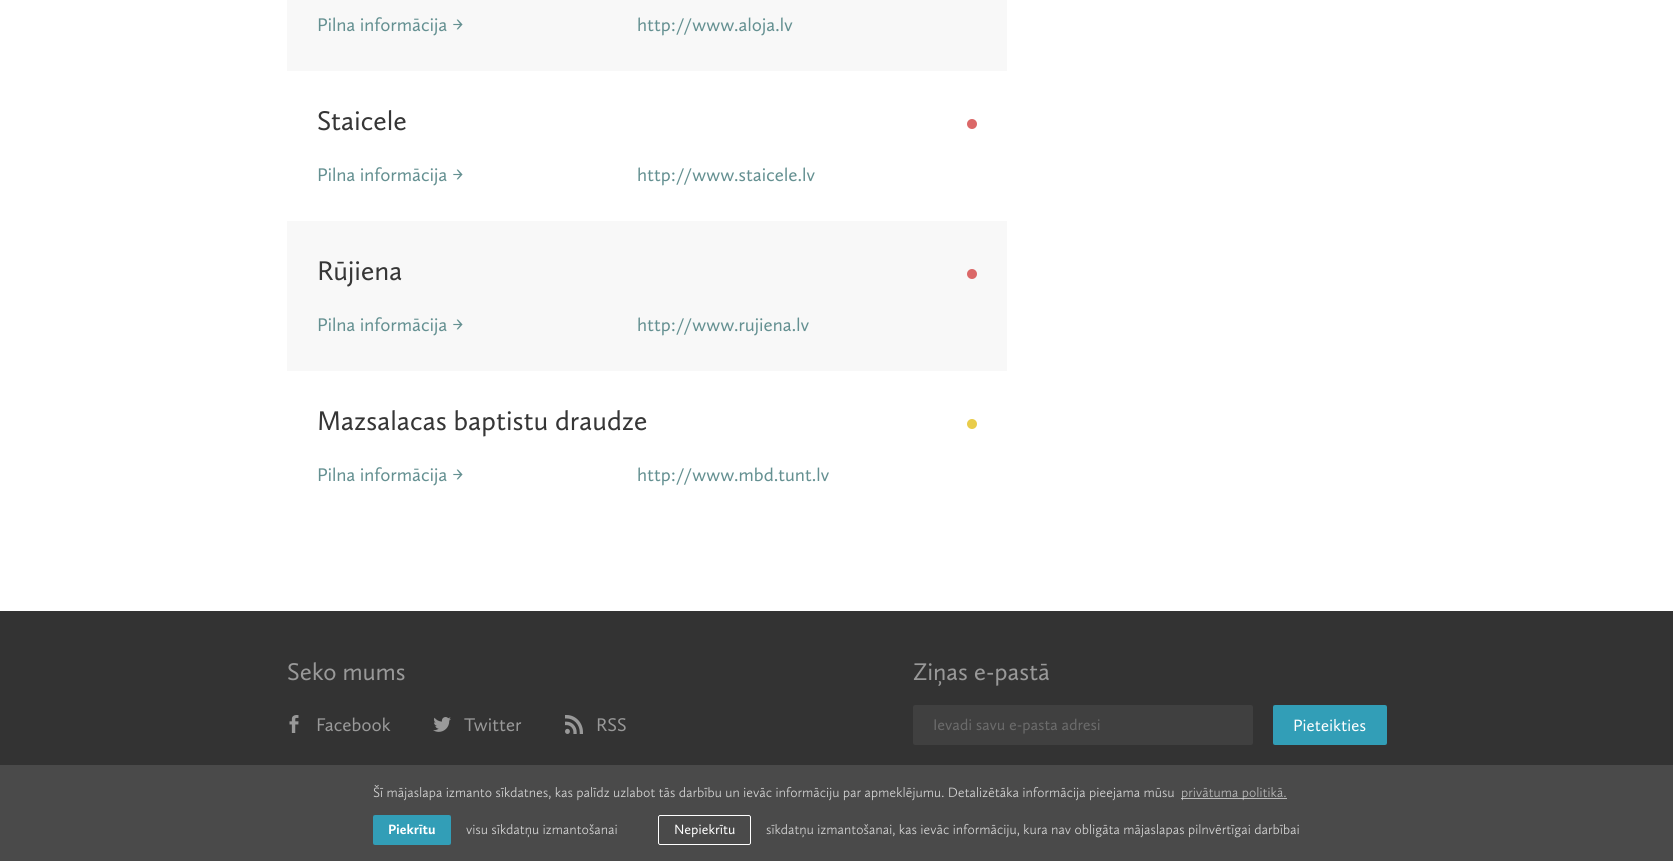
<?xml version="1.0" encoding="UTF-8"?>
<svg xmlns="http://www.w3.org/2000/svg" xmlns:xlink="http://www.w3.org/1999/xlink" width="1673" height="861">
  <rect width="100%" height="100%" fill="#ffffff" />
  <rect x="287" width="720" height="71" fill="#f8f8f8" />
  <image x="318" y="17" width="145" height="19" xlink:href="image1.png" />
  <image x="638" y="17" width="155" height="19" xlink:href="image2.png" />
  <image x="318" y="110" width="88" height="21" xlink:href="image3.png" />
  <image x="967" y="119" width="10" height="10" xlink:href="image4.png" />
  <image x="318" y="167" width="145" height="19" xlink:href="image5.png" />
  <image x="638" y="167" width="177" height="19" xlink:href="image6.png" />
  <rect x="287" y="221" width="720" height="150" fill="#f8f8f8" />
  <image x="319" y="261" width="83" height="26" xlink:href="image7.png" />
  <image x="967" y="269" width="10" height="10" xlink:href="image8.png" />
  <image x="318" y="317" width="145" height="19" xlink:href="image1.png" />
  <image x="638" y="317" width="171" height="19" xlink:href="image9.png" />
  <image x="319" y="410" width="328" height="27" xlink:href="image10.png" />
  <image x="967" y="419" width="10" height="10" xlink:href="image11.png" />
  <image x="318" y="467" width="145" height="19" xlink:href="image5.png" />
  <image x="638" y="467" width="191" height="19" xlink:href="image12.png" />
  <rect y="611" width="1673" height="154" fill="#333333" />
  <image x="288" y="662" width="117" height="19" xlink:href="image13.png" />
  <image x="289" y="715" width="10" height="18" xlink:href="image14.png" />
  <image x="317" y="717" width="74" height="15" xlink:href="image15.png" />
  <image x="433" y="717" width="18" height="15" xlink:href="image16.png" />
  <image x="464" y="718" width="58" height="14" xlink:href="image17.png" />
  <image x="565" y="715" width="18" height="19" xlink:href="image18.png" />
  <image x="597" y="718" width="29" height="14" xlink:href="image19.png" />
  <image x="913" y="663" width="136" height="23" xlink:href="image20.png" />
  <rect x="913" y="705" width="340" height="40" rx="2" fill="#404040" />
  <image x="934" y="718" width="166" height="16" xlink:href="image21.png" />
  <rect x="1273" y="705" width="114" height="40" rx="2" fill="#329eb7" />
  <image x="1294" y="718" width="72" height="14" xlink:href="image22.png" />
  <rect y="765" width="1673" height="96" fill="#4a4a4a" />
  <image x="373" y="784" width="801" height="17" xlink:href="image23.png" />
  <rect x="1181" y="798" width="106" height="1" fill="#b8b8b8" />
  <image x="1182" y="787" width="104" height="14" xlink:href="image24.png" />
  <rect x="373" y="815" width="78" height="30" rx="2" fill="#329eb7" />
  <image x="389" y="824" width="46" height="11" xlink:href="image25.png" />
  <image x="466" y="824" width="151" height="14" xlink:href="image26.png" />
  <rect x="658.5" y="815.5" width="92" height="29" rx="1.5" fill="none" stroke="#ffffff" />
  <image x="675" y="824" width="60" height="14" xlink:href="image27.png" />
  <image x="766" y="823" width="533" height="15" xlink:href="image28.png" />
</svg>
